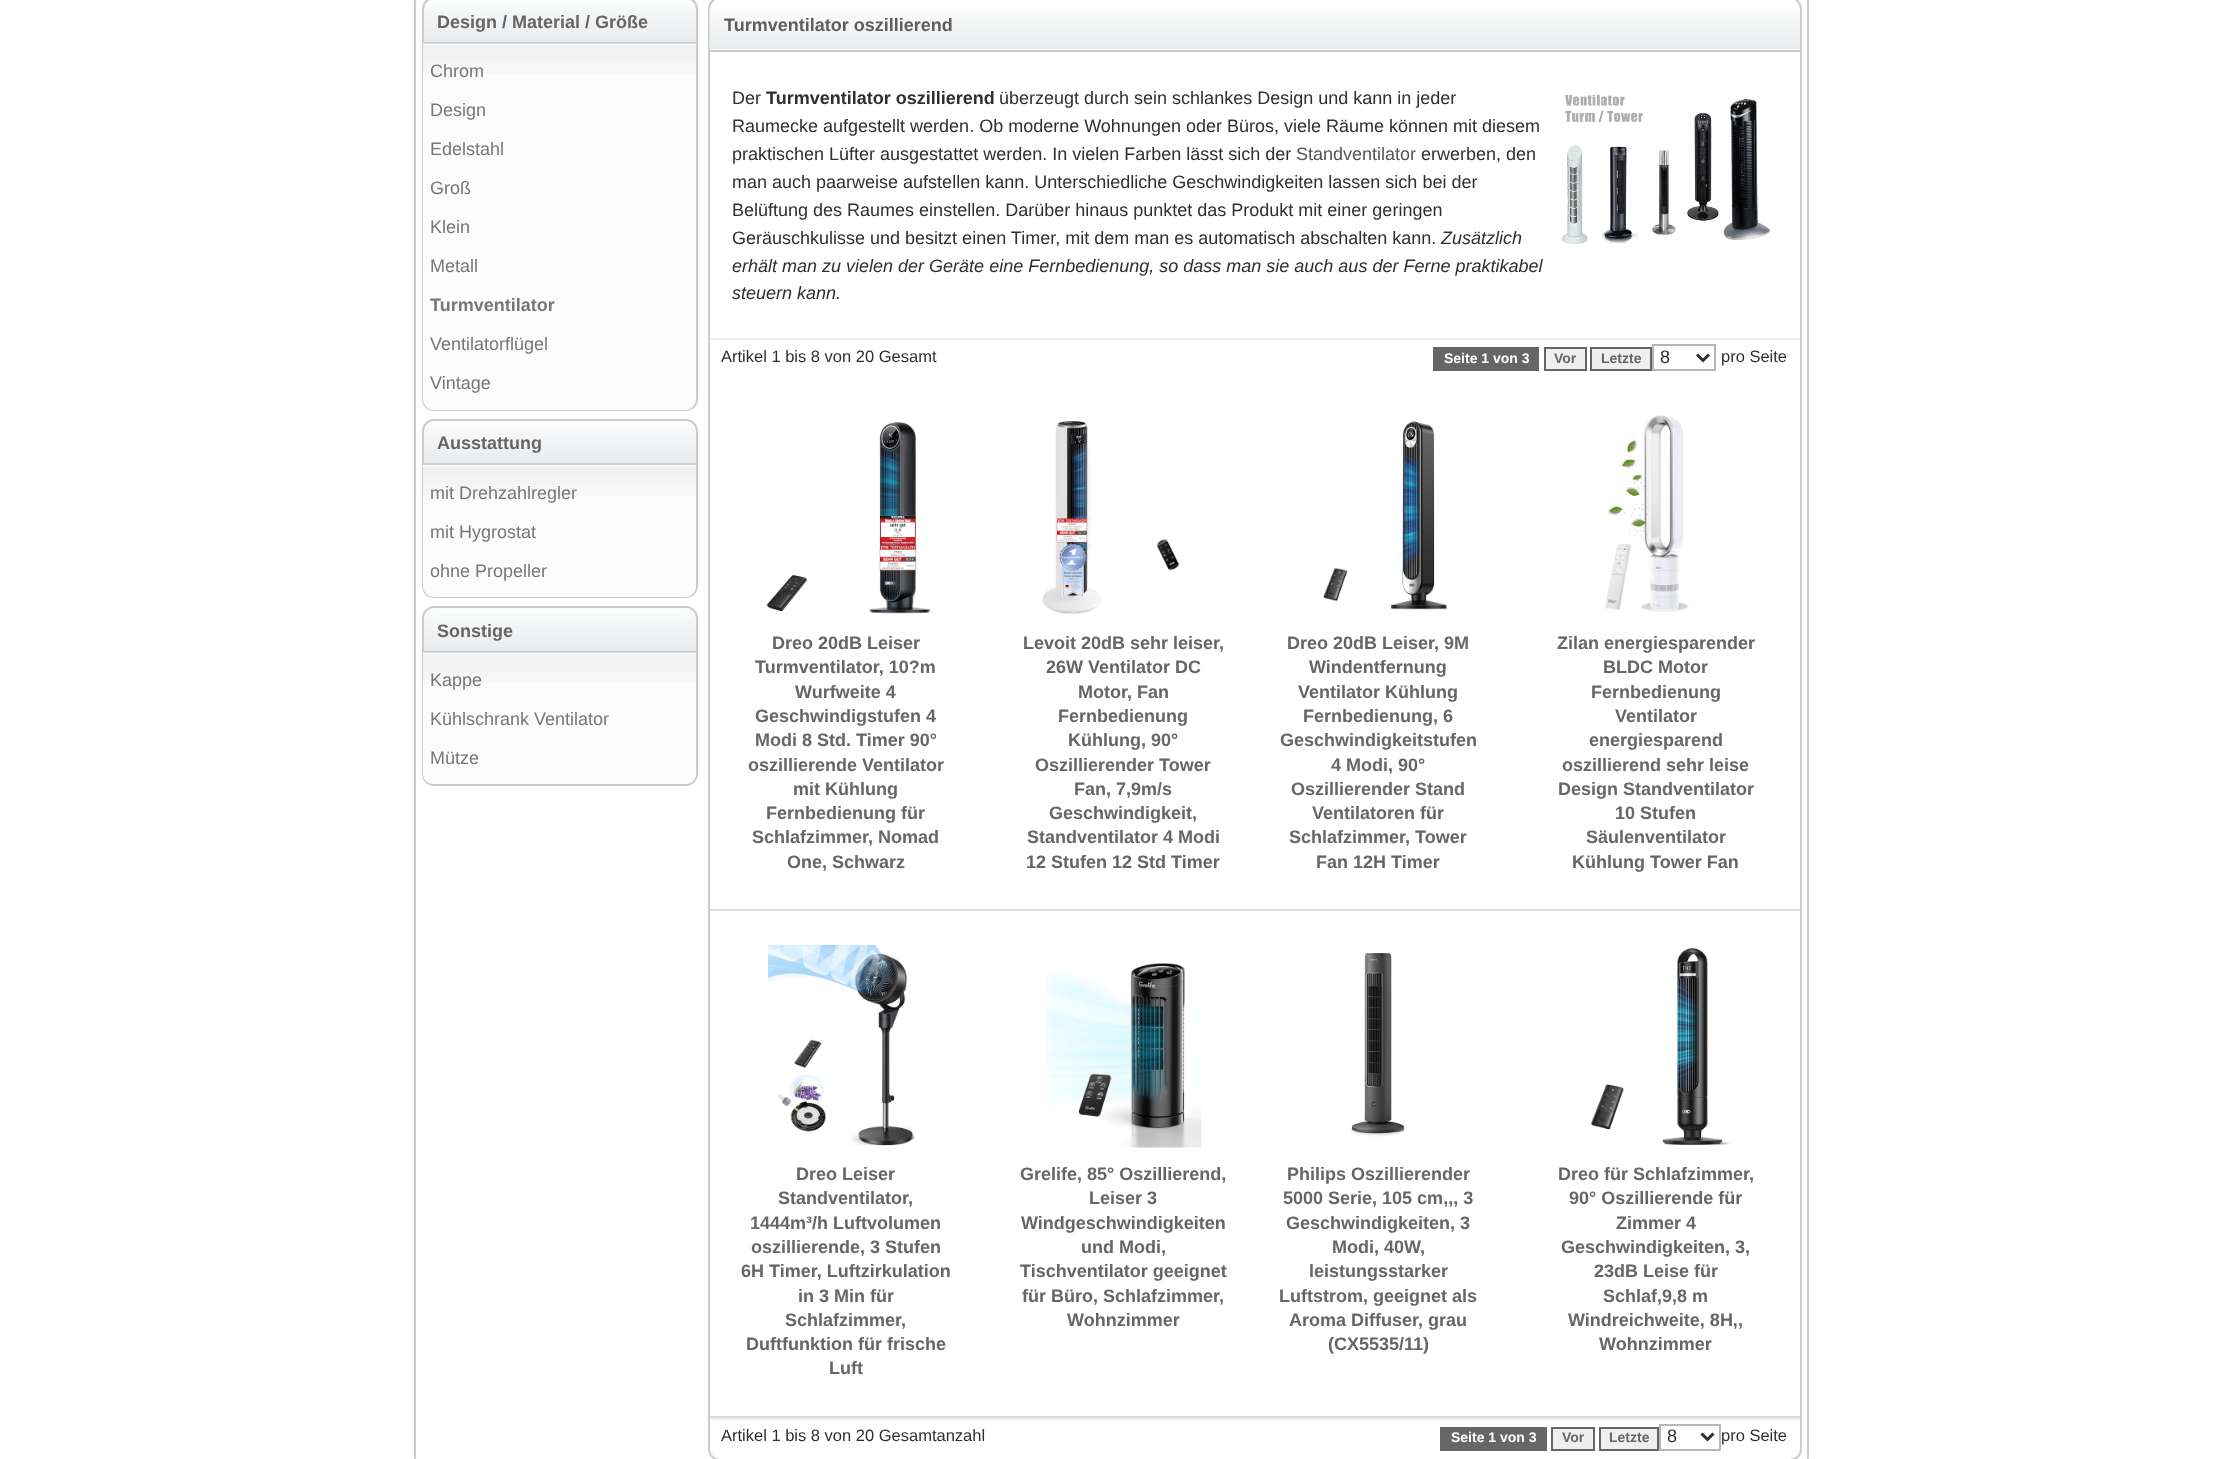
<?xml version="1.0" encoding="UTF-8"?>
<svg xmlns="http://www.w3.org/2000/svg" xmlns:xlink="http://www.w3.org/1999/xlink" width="2221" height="1459">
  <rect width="100%" height="100%" fill="#ffffff" />
  <rect x="415" y="-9" width="1393" height="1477" rx="11" fill="none" stroke="#cccccc" stroke-width="2" />
  <path d="M 434 -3 h 252 c 6.5 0 12 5.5 12 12 v 35 h -276 v -35 c 0 -6.5 5.5 -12 12 -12 z" fill="#fcfdfd" />
  <image x="421" y="5" width="277" height="37" xlink:href="image1.png" />
  <path d="M 434 -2 h 252 c 6 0 11 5 11 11 v 34 h -274 v -34 c 0 -6 5 -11 11 -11 z" fill="none" stroke="#cccccc" stroke-width="2" />
  <path d="M 422 44 h 276 v 355 c 0 6.5 -5.5 12 -12 12 h -252 c -6.5 0 -12 -5.5 -12 -12 z" fill="#fcfcfc" />
  <image x="421" y="43" width="276" height="31" xlink:href="image2.png" />
  <path d="M 422 44 h 276 v 355 c 0 7 -6 12 -12 12 h -252 c -7 0 -12 -5 -12 -12 z m 1 0 h 273 v 355 c 0 6 -5 11 -10 11 h -252 c -6 0 -11 -5 -11 -11 z" fill="#cccccc" fill-rule="evenodd" />
  <path d="M 434 419 h 252 c 6.5 0 12 5.5 12 12 v 34 h -276 v -34 c 0 -6.5 5.5 -12 12 -12 z" fill="#fcfdfd" />
  <image x="421" y="424" width="277" height="40" xlink:href="image3.png" />
  <path d="M 434 420 h 252 c 6 0 11 5 11 11 v 33 h -274 v -33 c 0 -6 5 -11 11 -11 z" fill="none" stroke="#cccccc" stroke-width="2" />
  <path d="M 422 465 h 276 v 122 c 0 6.5 -5.5 12 -12 12 h -252 c -6.5 0 -12 -5.5 -12 -12 z" fill="#fcfcfc" />
  <image x="421" y="466" width="275" height="30" xlink:href="image4.png" />
  <path d="M 422 465 h 276 v 121 c 0 7 -6 12 -12 12 h -252 c -7 0 -12 -5 -12 -12 z m 1 0 h 273 v 121 c 0 6 -5 11 -10 11 h -252 c -6 0 -11 -5 -11 -11 z" fill="#cccccc" fill-rule="evenodd" />
  <path d="M 434 606 h 252 c 6.5 0 12 5.5 12 12 v 35 h -276 v -35 c 0 -6.5 5.5 -12 12 -12 z" fill="#fcfdfd" />
  <image x="421" y="614" width="277" height="37" xlink:href="image1.png" />
  <path d="M 434 607 h 252 c 6 0 11 5 11 11 v 34 h -274 v -34 c 0 -6 5 -11 11 -11 z" fill="none" stroke="#cccccc" stroke-width="2" />
  <path d="M 422 653 h 276 v 121 c 0 6.5 -5.5 12 -12 12 h -252 c -6.5 0 -12 -5.5 -12 -12 z" fill="#fcfcfc" />
  <image x="421" y="652" width="275" height="31" xlink:href="image5.png" />
  <path d="M 422 652 h 276 v 122 c 0 7 -6 12 -12 12 h -252 c -7 0 -12 -5 -12 -12 z m 1 0 h 273 v 122 c 0 6 -5 10 -10 10 h -252 c -6 0 -11 -4 -11 -10 z" fill="#cccccc" fill-rule="evenodd" />
  <rect x="709" y="-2" width="1092" height="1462" rx="11" fill="none" stroke="#cccccc" stroke-width="2" />
  <image x="709" y="9" width="1091" height="41" xlink:href="image6.png" />
  <rect x="710" y="50" width="1090" height="2" fill="#cccccc" />
  <image x="1562" y="94" width="208" height="150" xlink:href="image7.png" />
  <rect x="710" y="338" width="1090" height="2" fill="#eeeeee" />
  <rect x="1433" y="347" width="106" height="24" fill="#666666" />
  <rect x="1545" y="348" width="41" height="22" fill="#efefef" stroke="#666666" stroke-width="2" />
  <rect x="1591" y="348" width="60" height="22" fill="#efefef" stroke="#666666" stroke-width="2" />
  <rect x="1653" y="345" width="62" height="25" fill="none" stroke="#b6b6b6" stroke-width="2" />
  <path d="M 1697 354.5 l 6 6 l 6 -6" fill="none" stroke="#2f2f2f" stroke-width="3" />
  <rect x="710" y="909" width="1090" height="2" fill="#d9dde3" />
  <image x="766" y="422" width="171" height="193" xlink:href="image8.png" />
  <image x="1042" y="421" width="138" height="194" xlink:href="image9.png" />
  <image x="1323" y="421" width="125" height="189" xlink:href="image10.png" />
  <image x="1605" y="415" width="85" height="197" xlink:href="image11.png" />
  <rect x="710" y="1416" width="1090" height="2" fill="#d9dde3" />
  <image x="768" y="945" width="147" height="201" xlink:href="image12.png" />
  <image x="1045" y="963" width="157" height="185" xlink:href="image13.png" />
  <image x="1350" y="953" width="55" height="184" xlink:href="image14.png" />
  <image x="1591" y="948" width="139" height="198" xlink:href="image15.png" />
  <rect x="710" y="1418" width="1090" height="2" fill="#eeeeee" />
  <rect x="1440" y="1427" width="107" height="24" fill="#666666" />
  <rect x="1552" y="1428" width="42" height="22" fill="#efefef" stroke="#666666" stroke-width="2" />
  <rect x="1600" y="1428" width="58" height="22" fill="#efefef" stroke="#666666" stroke-width="2" />
  <rect x="1660" y="1425" width="60" height="25" fill="none" stroke="#b6b6b6" stroke-width="2" />
  <path d="M 1701.5 1433.5 l 6 6 l 6 -6" fill="none" stroke="#2f2f2f" stroke-width="3" />
  <text x="437" y="28" style="font-family: Liberation Sans; font-size: 18px; font-weight: bold; fill: #666666">Design / Material / Größe</text>
  <text x="430" y="77" style="font-family: Liberation Sans; font-size: 18px; fill: #777777">Chrom</text>
  <text x="430" y="116" style="font-family: Liberation Sans; font-size: 18px; fill: #777777">Design</text>
  <text x="430" y="155" style="font-family: Liberation Sans; font-size: 18px; fill: #777777">Edelstahl</text>
  <text x="430" y="194" style="font-family: Liberation Sans; font-size: 18px; fill: #777777">Groß</text>
  <text x="430" y="233" style="font-family: Liberation Sans; font-size: 18px; fill: #777777">Klein</text>
  <text x="430" y="272" style="font-family: Liberation Sans; font-size: 18px; fill: #777777">Metall</text>
  <text x="430" y="311" style="font-family: Liberation Sans; font-size: 18px; font-weight: bold; fill: #777777">Turmventilator</text>
  <text x="430" y="350" style="font-family: Liberation Sans; font-size: 18px; fill: #777777">Ventilatorflügel</text>
  <text x="430" y="389" style="font-family: Liberation Sans; font-size: 18px; fill: #777777">Vintage</text>
  <text x="437" y="449" style="font-family: Liberation Sans; font-size: 18px; font-weight: bold; fill: #666666">Ausstattung</text>
  <text x="430" y="499" style="font-family: Liberation Sans; font-size: 18px; fill: #777777">mit Drehzahlregler</text>
  <text x="430" y="538" style="font-family: Liberation Sans; font-size: 18px; fill: #777777">mit Hygrostat</text>
  <text x="430" y="577" style="font-family: Liberation Sans; font-size: 18px; fill: #777777">ohne Propeller</text>
  <text x="437" y="637" style="font-family: Liberation Sans; font-size: 18px; font-weight: bold; fill: #666666">Sonstige</text>
  <text x="430" y="686" style="font-family: Liberation Sans; font-size: 18px; fill: #777777">Kappe</text>
  <text x="430" y="725" style="font-family: Liberation Sans; font-size: 18px; fill: #777777">Kühlschrank Ventilator</text>
  <text x="430" y="764" style="font-family: Liberation Sans; font-size: 18px; fill: #777777">Mütze</text>
  <text x="724" y="31" style="font-family: Liberation Sans; font-size: 18px; font-weight: bold; fill: #5f5e5e">Turmventilator oszillierend</text>
  <text x="732" y="104" style="font-family: Liberation Sans; font-size: 18px; fill: #2f2f2f">Der</text>
  <text x="766" y="104" style="font-family: Liberation Sans; font-size: 18px; font-weight: bold; fill: #2f2f2f">Turmventilator oszillierend</text>
  <text x="999" y="104" style="font-family: Liberation Sans; font-size: 18px; fill: #2f2f2f">überzeugt durch sein schlankes Design und kann in jeder</text>
  <text x="732" y="132" style="font-family: Liberation Sans; font-size: 18px; fill: #2f2f2f">Raumecke aufgestellt werden. Ob moderne Wohnungen oder Büros, viele Räume können mit diesem</text>
  <text x="732" y="160" style="font-family: Liberation Sans; font-size: 18px; fill: #2f2f2f">praktischen Lüfter ausgestattet werden. In vielen Farben lässt sich der</text>
  <text x="1296" y="160" style="font-family: Liberation Sans; font-size: 18px; fill: #555452">Standventilator</text>
  <text x="1421" y="160" style="font-family: Liberation Sans; font-size: 18px; fill: #2f2f2f">erwerben, den</text>
  <text x="732" y="188" style="font-family: Liberation Sans; font-size: 18px; fill: #2f2f2f">man auch paarweise aufstellen kann. Unterschiedliche Geschwindigkeiten lassen sich bei der</text>
  <text x="732" y="216" style="font-family: Liberation Sans; font-size: 18px; fill: #2f2f2f">Belüftung des Raumes einstellen. Darüber hinaus punktet das Produkt mit einer geringen</text>
  <text x="732" y="244" style="font-family: Liberation Sans; font-size: 18px; fill: #2f2f2f">Geräuschkulisse und besitzt einen Timer, mit dem man es automatisch abschalten kann.</text>
  <text x="1441" y="244" style="font-family: Liberation Sans; font-size: 18px; font-style: italic; fill: #2f2f2f">Zusätzlich</text>
  <text x="732" y="272" style="font-family: Liberation Sans; font-size: 18px; font-style: italic; fill: #2f2f2f">erhält man zu vielen der Geräte eine Fernbedienung, so dass man sie auch aus der Ferne praktikabel</text>
  <text x="732" y="299" style="font-family: Liberation Sans; font-size: 18px; font-style: italic; fill: #2f2f2f">steuern kann.</text>
  <text x="721" y="362" style="font-family: Liberation Sans; font-size: 16.5px; fill: #2f2f2f">Artikel 1 bis 8 von 20 Gesamt</text>
  <text x="1444" y="363" style="font-family: Liberation Sans; font-size: 14px; font-weight: bold; fill: #ffffff">Seite 1 von 3</text>
  <text x="1554" y="363" style="font-family: Liberation Sans; font-size: 14px; font-weight: bold; fill: #666666">Vor</text>
  <text x="1601" y="363" style="font-family: Liberation Sans; font-size: 14px; font-weight: bold; fill: #666666">Letzte</text>
  <text x="1660" y="363" style="font-family: Liberation Sans; font-size: 18px; fill: #2f2f2f">8</text>
  <text x="1721" y="362" style="font-family: Liberation Sans; font-size: 16.5px; fill: #2f2f2f">pro Seite</text>
  <text x="772" y="649" style="font-family: Liberation Sans; font-size: 18px; font-weight: bold; fill: #666666">Dreo 20dB Leiser</text>
  <text x="755" y="673" style="font-family: Liberation Sans; font-size: 18px; font-weight: bold; fill: #666666">Turmventilator, 10?m</text>
  <text x="795" y="698" style="font-family: Liberation Sans; font-size: 18px; font-weight: bold; fill: #666666">Wurfweite 4</text>
  <text x="755" y="722" style="font-family: Liberation Sans; font-size: 18px; font-weight: bold; fill: #666666">Geschwindigstufen 4</text>
  <text x="755" y="746" style="font-family: Liberation Sans; font-size: 18px; font-weight: bold; fill: #666666">Modi 8 Std. Timer 90°</text>
  <text x="748" y="771" style="font-family: Liberation Sans; font-size: 18px; font-weight: bold; fill: #666666">oszillierende Ventilator</text>
  <text x="793" y="795" style="font-family: Liberation Sans; font-size: 18px; font-weight: bold; fill: #666666">mit Kühlung</text>
  <text x="766" y="819" style="font-family: Liberation Sans; font-size: 18px; font-weight: bold; fill: #666666">Fernbedienung für</text>
  <text x="752" y="843" style="font-family: Liberation Sans; font-size: 18px; font-weight: bold; fill: #666666">Schlafzimmer, Nomad</text>
  <text x="787" y="868" style="font-family: Liberation Sans; font-size: 18px; font-weight: bold; fill: #666666">One, Schwarz</text>
  <text x="1023" y="649" style="font-family: Liberation Sans; font-size: 18px; font-weight: bold; fill: #666666">Levoit 20dB sehr leiser,</text>
  <text x="1046" y="673" style="font-family: Liberation Sans; font-size: 18px; font-weight: bold; fill: #666666">26W Ventilator DC</text>
  <text x="1078" y="698" style="font-family: Liberation Sans; font-size: 18px; font-weight: bold; fill: #666666">Motor, Fan</text>
  <text x="1058" y="722" style="font-family: Liberation Sans; font-size: 18px; font-weight: bold; fill: #666666">Fernbedienung</text>
  <text x="1068" y="746" style="font-family: Liberation Sans; font-size: 18px; font-weight: bold; fill: #666666">Kühlung, 90°</text>
  <text x="1035" y="771" style="font-family: Liberation Sans; font-size: 18px; font-weight: bold; fill: #666666">Oszillierender Tower</text>
  <text x="1074" y="795" style="font-family: Liberation Sans; font-size: 18px; font-weight: bold; fill: #666666">Fan, 7,9m/s</text>
  <text x="1049" y="819" style="font-family: Liberation Sans; font-size: 18px; font-weight: bold; fill: #666666">Geschwindigkeit,</text>
  <text x="1027" y="843" style="font-family: Liberation Sans; font-size: 18px; font-weight: bold; fill: #666666">Standventilator 4 Modi</text>
  <text x="1026" y="868" style="font-family: Liberation Sans; font-size: 18px; font-weight: bold; fill: #666666">12 Stufen 12 Std Timer</text>
  <text x="1287" y="649" style="font-family: Liberation Sans; font-size: 18px; font-weight: bold; fill: #666666">Dreo 20dB Leiser, 9M</text>
  <text x="1309" y="673" style="font-family: Liberation Sans; font-size: 18px; font-weight: bold; fill: #666666">Windentfernung</text>
  <text x="1298" y="698" style="font-family: Liberation Sans; font-size: 18px; font-weight: bold; fill: #666666">Ventilator Kühlung</text>
  <text x="1303" y="722" style="font-family: Liberation Sans; font-size: 18px; font-weight: bold; fill: #666666">Fernbedienung, 6</text>
  <text x="1280" y="746" style="font-family: Liberation Sans; font-size: 18px; font-weight: bold; fill: #666666">Geschwindigkeitstufen</text>
  <text x="1331" y="771" style="font-family: Liberation Sans; font-size: 18px; font-weight: bold; fill: #666666">4 Modi, 90°</text>
  <text x="1291" y="795" style="font-family: Liberation Sans; font-size: 18px; font-weight: bold; fill: #666666">Oszillierender Stand</text>
  <text x="1312" y="819" style="font-family: Liberation Sans; font-size: 18px; font-weight: bold; fill: #666666">Ventilatoren für</text>
  <text x="1289" y="843" style="font-family: Liberation Sans; font-size: 18px; font-weight: bold; fill: #666666">Schlafzimmer, Tower</text>
  <text x="1316" y="868" style="font-family: Liberation Sans; font-size: 18px; font-weight: bold; fill: #666666">Fan 12H Timer</text>
  <text x="1557" y="649" style="font-family: Liberation Sans; font-size: 18px; font-weight: bold; fill: #666666">Zilan energiesparender</text>
  <text x="1603" y="673" style="font-family: Liberation Sans; font-size: 18px; font-weight: bold; fill: #666666">BLDC Motor</text>
  <text x="1591" y="698" style="font-family: Liberation Sans; font-size: 18px; font-weight: bold; fill: #666666">Fernbedienung</text>
  <text x="1615" y="722" style="font-family: Liberation Sans; font-size: 18px; font-weight: bold; fill: #666666">Ventilator</text>
  <text x="1589" y="746" style="font-family: Liberation Sans; font-size: 18px; font-weight: bold; fill: #666666">energiesparend</text>
  <text x="1562" y="771" style="font-family: Liberation Sans; font-size: 18px; font-weight: bold; fill: #666666">oszillierend sehr leise</text>
  <text x="1558" y="795" style="font-family: Liberation Sans; font-size: 18px; font-weight: bold; fill: #666666">Design Standventilator</text>
  <text x="1615" y="819" style="font-family: Liberation Sans; font-size: 18px; font-weight: bold; fill: #666666">10 Stufen</text>
  <text x="1586" y="843" style="font-family: Liberation Sans; font-size: 18px; font-weight: bold; fill: #666666">Säulenventilator</text>
  <text x="1572" y="868" style="font-family: Liberation Sans; font-size: 18px; font-weight: bold; fill: #666666">Kühlung Tower Fan</text>
  <text x="796" y="1180" style="font-family: Liberation Sans; font-size: 18px; font-weight: bold; fill: #666666">Dreo Leiser</text>
  <text x="778" y="1204" style="font-family: Liberation Sans; font-size: 18px; font-weight: bold; fill: #666666">Standventilator,</text>
  <text x="750" y="1229" style="font-family: Liberation Sans; font-size: 18px; font-weight: bold; fill: #666666">1444m³/h Luftvolumen</text>
  <text x="751" y="1253" style="font-family: Liberation Sans; font-size: 18px; font-weight: bold; fill: #666666">oszillierende, 3 Stufen</text>
  <text x="741" y="1277" style="font-family: Liberation Sans; font-size: 18px; font-weight: bold; fill: #666666">6H Timer, Luftzirkulation</text>
  <text x="798" y="1302" style="font-family: Liberation Sans; font-size: 18px; font-weight: bold; fill: #666666">in 3 Min für</text>
  <text x="785" y="1326" style="font-family: Liberation Sans; font-size: 18px; font-weight: bold; fill: #666666">Schlafzimmer,</text>
  <text x="746" y="1350" style="font-family: Liberation Sans; font-size: 18px; font-weight: bold; fill: #666666">Duftfunktion für frische</text>
  <text x="829" y="1374" style="font-family: Liberation Sans; font-size: 18px; font-weight: bold; fill: #666666">Luft</text>
  <text x="1020" y="1180" style="font-family: Liberation Sans; font-size: 18px; font-weight: bold; fill: #666666">Grelife, 85° Oszillierend,</text>
  <text x="1089" y="1204" style="font-family: Liberation Sans; font-size: 18px; font-weight: bold; fill: #666666">Leiser 3</text>
  <text x="1021" y="1229" style="font-family: Liberation Sans; font-size: 18px; font-weight: bold; fill: #666666">Windgeschwindigkeiten</text>
  <text x="1081" y="1253" style="font-family: Liberation Sans; font-size: 18px; font-weight: bold; fill: #666666">und Modi,</text>
  <text x="1020" y="1277" style="font-family: Liberation Sans; font-size: 18px; font-weight: bold; fill: #666666">Tischventilator geeignet</text>
  <text x="1022" y="1302" style="font-family: Liberation Sans; font-size: 18px; font-weight: bold; fill: #666666">für Büro, Schlafzimmer,</text>
  <text x="1067" y="1326" style="font-family: Liberation Sans; font-size: 18px; font-weight: bold; fill: #666666">Wohnzimmer</text>
  <text x="1287" y="1180" style="font-family: Liberation Sans; font-size: 18px; font-weight: bold; fill: #666666">Philips Oszillierender</text>
  <text x="1283" y="1204" style="font-family: Liberation Sans; font-size: 18px; font-weight: bold; fill: #666666">5000 Serie, 105 cm,,, 3</text>
  <text x="1286" y="1229" style="font-family: Liberation Sans; font-size: 18px; font-weight: bold; fill: #666666">Geschwindigkeiten, 3</text>
  <text x="1332" y="1253" style="font-family: Liberation Sans; font-size: 18px; font-weight: bold; fill: #666666">Modi, 40W,</text>
  <text x="1309" y="1277" style="font-family: Liberation Sans; font-size: 18px; font-weight: bold; fill: #666666">leistungsstarker</text>
  <text x="1279" y="1302" style="font-family: Liberation Sans; font-size: 18px; font-weight: bold; fill: #666666">Luftstrom, geeignet als</text>
  <text x="1289" y="1326" style="font-family: Liberation Sans; font-size: 18px; font-weight: bold; fill: #666666">Aroma Diffuser, grau</text>
  <text x="1328" y="1350" style="font-family: Liberation Sans; font-size: 18px; font-weight: bold; fill: #666666">(CX5535/11)</text>
  <text x="1558" y="1180" style="font-family: Liberation Sans; font-size: 18px; font-weight: bold; fill: #666666">Dreo für Schlafzimmer,</text>
  <text x="1569" y="1204" style="font-family: Liberation Sans; font-size: 18px; font-weight: bold; fill: #666666">90° Oszillierende für</text>
  <text x="1616" y="1229" style="font-family: Liberation Sans; font-size: 18px; font-weight: bold; fill: #666666">Zimmer 4</text>
  <text x="1561" y="1253" style="font-family: Liberation Sans; font-size: 18px; font-weight: bold; fill: #666666">Geschwindigkeiten, 3,</text>
  <text x="1594" y="1277" style="font-family: Liberation Sans; font-size: 18px; font-weight: bold; fill: #666666">23dB Leise für</text>
  <text x="1603" y="1302" style="font-family: Liberation Sans; font-size: 18px; font-weight: bold; fill: #666666">Schlaf,9,8 m</text>
  <text x="1568" y="1326" style="font-family: Liberation Sans; font-size: 18px; font-weight: bold; fill: #666666">Windreichweite, 8H,,</text>
  <text x="1599" y="1350" style="font-family: Liberation Sans; font-size: 18px; font-weight: bold; fill: #666666">Wohnzimmer</text>
  <text x="721" y="1441" style="font-family: Liberation Sans; font-size: 16.5px; fill: #2f2f2f">Artikel 1 bis 8 von 20 Gesamtanzahl</text>
  <text x="1451" y="1442" style="font-family: Liberation Sans; font-size: 14px; font-weight: bold; fill: #ffffff">Seite 1 von 3</text>
  <text x="1562" y="1442" style="font-family: Liberation Sans; font-size: 14px; font-weight: bold; fill: #666666">Vor</text>
  <text x="1609" y="1442" style="font-family: Liberation Sans; font-size: 14px; font-weight: bold; fill: #666666">Letzte</text>
  <text x="1667" y="1442" style="font-family: Liberation Sans; font-size: 18px; fill: #2f2f2f">8</text>
  <text x="1721" y="1441" style="font-family: Liberation Sans; font-size: 16.5px; fill: #2f2f2f">pro Seite</text>
</svg>
